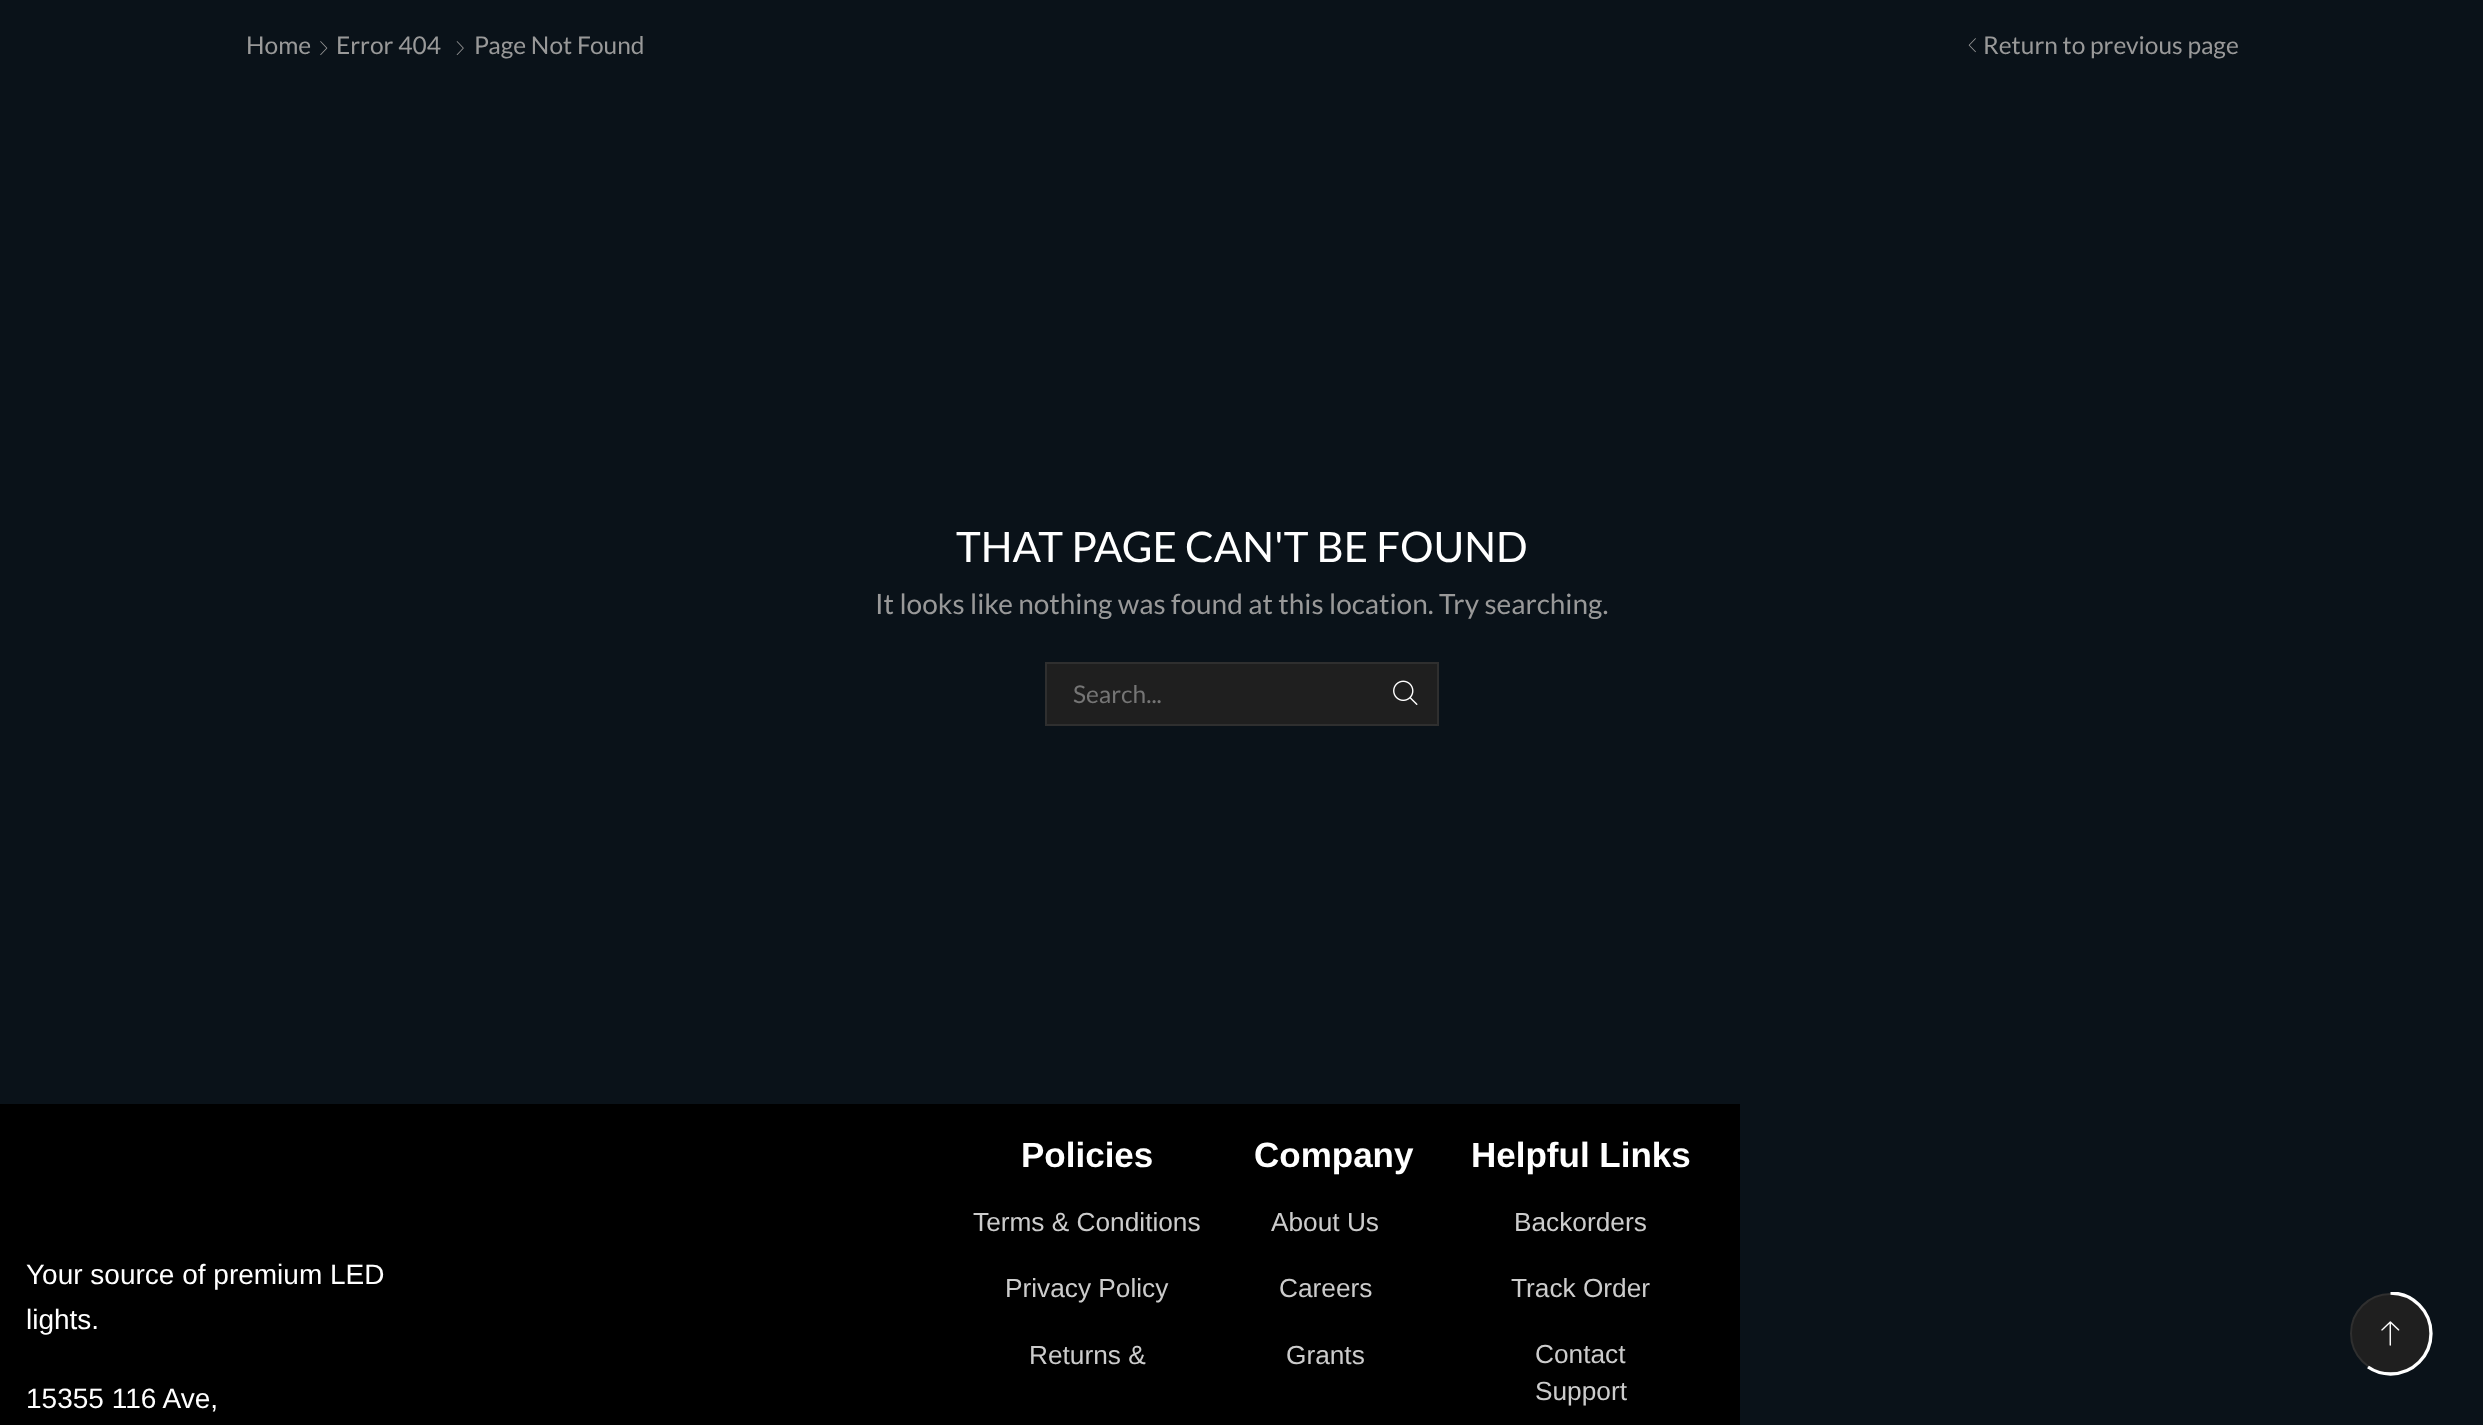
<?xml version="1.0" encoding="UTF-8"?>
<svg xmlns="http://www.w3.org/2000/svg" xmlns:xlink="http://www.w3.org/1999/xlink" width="2483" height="1425">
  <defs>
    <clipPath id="clip1"><rect x="2349" y="1292" width="84" height="84" /></clipPath>
  </defs>
  <rect width="100%" height="100%" fill="#0a1219" />
  <image x="320" y="41" width="8" height="15" xlink:href="image1.png" />
  <image x="456" y="41" width="8" height="14" xlink:href="image2.png" />
  <image x="1968" y="38" width="8" height="15" xlink:href="image3.png" />
  <rect x="1046" y="663" width="392" height="62" fill="#1f1f1f" stroke="#2f2f2f" stroke-width="2" />
  <image x="1393" y="680" width="25" height="25" xlink:href="image4.png" />
  <circle cx="2390.5" cy="1333.5" r="39.5" fill="#1f1f1f" stroke="#2f2f2f" stroke-width="2" />
  <g clip-path="url(#clip1)">
    <path d="M 2390.5 1293 c 22.5 0 40.5 18 40.5 40.5 c 0 22.5 -18 40.5 -40.5 40.5 c -8.5 0 -16 -2.5 -22.5 -7" fill="none" stroke="#ffffff" stroke-width="3.3" />
  </g>
  <image x="2381" y="1321" width="19" height="25" xlink:href="image5.png" />
  <rect y="1104" width="1740" height="321" fill="#000000" />
  <text x="246" y="54" style="font-family: Lato; font-size: 24.5px; fill: #999999">Home</text>
  <text x="336" y="54" style="font-family: Lato; font-size: 24.5px; fill: #999999">Error 404</text>
  <text x="474" y="54" style="font-family: Lato; font-size: 24.5px; fill: #999999">Page Not Found</text>
  <text x="1983" y="54" style="font-family: Lato; font-size: 24.5px; fill: #999999">Return to previous page</text>
  <text x="956" y="562" style="font-family: Lato; font-size: 42px; fill: #ffffff">THAT PAGE CAN'T BE FOUND</text>
  <text x="875" y="614" style="font-family: Lato; font-size: 28px; fill: #999999">It looks like nothing was found at this location. Try searching.</text>
  <text x="1073" y="703" style="font-family: Lato; font-size: 24.5px; fill: #757575">Search...</text>
  <text x="26" y="1284" style="font-family: Liberation Sans; font-size: 28px; fill: #ffffff">Your source of premium LED</text>
  <text x="26" y="1329" style="font-family: Liberation Sans; font-size: 28px; fill: #ffffff">lights.</text>
  <text x="26" y="1408" style="font-family: Liberation Sans; font-size: 28px; fill: #ffffff">15355 116 Ave,</text>
  <text x="1021" y="1167" style="font-family: Liberation Sans; font-size: 35px; font-weight: bold; fill: #ffffff">Policies</text>
  <text x="973" y="1231" style="font-family: Liberation Sans; font-size: 26.25px; fill: #cccccc">Terms &amp; Conditions</text>
  <text x="1005" y="1297" style="font-family: Liberation Sans; font-size: 26.25px; fill: #cccccc">Privacy Policy</text>
  <text x="1029" y="1364" style="font-family: Liberation Sans; font-size: 26.25px; fill: #cccccc">Returns &amp;</text>
  <text x="1254" y="1167" style="font-family: Liberation Sans; font-size: 35px; font-weight: bold; fill: #ffffff">Company</text>
  <text x="1271" y="1231" style="font-family: Liberation Sans; font-size: 26.25px; fill: #cccccc">About Us</text>
  <text x="1279" y="1297" style="font-family: Liberation Sans; font-size: 26.25px; fill: #cccccc">Careers</text>
  <text x="1286" y="1364" style="font-family: Liberation Sans; font-size: 26.25px; fill: #cccccc">Grants</text>
  <text x="1471" y="1167" style="font-family: Liberation Sans; font-size: 35px; font-weight: bold; fill: #ffffff">Helpful Links</text>
  <text x="1514" y="1231" style="font-family: Liberation Sans; font-size: 26.25px; fill: #cccccc">Backorders</text>
  <text x="1511" y="1297" style="font-family: Liberation Sans; font-size: 26.25px; fill: #cccccc">Track Order</text>
  <text x="1535" y="1363" style="font-family: Liberation Sans; font-size: 26.25px; fill: #cccccc">Contact</text>
  <text x="1535" y="1400" style="font-family: Liberation Sans; font-size: 26.25px; fill: #cccccc">Support</text>
</svg>
